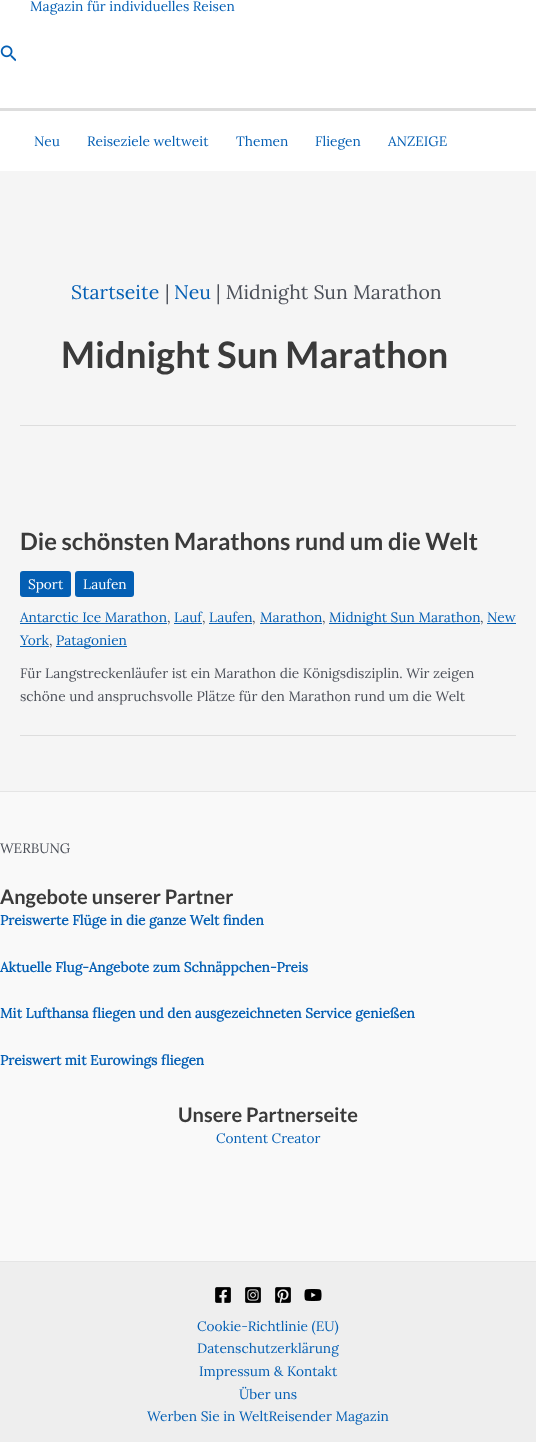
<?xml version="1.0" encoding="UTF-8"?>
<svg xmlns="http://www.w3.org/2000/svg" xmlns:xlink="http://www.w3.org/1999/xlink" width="536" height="1442">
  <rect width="100%" height="100%" fill="#f5f5f5" />
  <rect width="536" height="108" fill="#ffffff" />
  <rect y="108" width="536" height="3" fill="#dddddd" />
  <image x="0" y="45" width="16" height="17" xlink:href="image1.png" />
  <rect y="111" width="536" height="60" fill="#ffffff" />
  <rect x="20" y="425" width="496" height="1" fill="#dddddd" />
  <rect x="20" y="735" width="496" height="1" fill="#dddddd" />
  <rect x="20" y="571" width="51" height="26" rx="3" fill="#045fb4" />
  <rect x="75" y="571" width="59" height="26" rx="3" fill="#045fb4" />
  <rect x="20" y="623" width="147" height="1" fill="#045fb4" />
  <rect x="174" y="623" width="28" height="1" fill="#045fb4" />
  <rect x="209" y="623" width="43" height="1" fill="#045fb4" />
  <rect x="260" y="623" width="62" height="1" fill="#045fb4" />
  <rect x="329" y="623" width="151" height="1" fill="#045fb4" />
  <rect x="487" y="623" width="29" height="1" fill="#045fb4" />
  <rect x="20" y="646" width="29" height="1" fill="#045fb4" />
  <rect x="56" y="646" width="71" height="1" fill="#045fb4" />
  <rect y="792" width="536" height="469" fill="#f9f9f9" />
  <rect y="791" width="536" height="1" fill="#e5e5e5" />
  <rect y="1262" width="536" height="180" fill="#eeeeee" />
  <rect y="1261" width="536" height="1" fill="#e5e5e5" />
  <image x="215" y="1287" width="16" height="16" xlink:href="image2.png" />
  <image x="245" y="1287" width="16" height="16" xlink:href="image3.png" />
  <image x="275" y="1287" width="16" height="16" xlink:href="image4.png" />
  <image x="304" y="1289" width="18" height="12" xlink:href="image5.png" />
  <text x="30" y="11" style="font-family: Lora; font-size: 13.7px; fill: #045fb4">Magazin für individuelles Reisen</text>
  <text x="34" y="146" style="font-family: Lora; font-size: 13.7px; fill: #045fb4">Neu</text>
  <text x="87" y="146" style="font-family: Lora; font-size: 13.7px; fill: #045fb4">Reiseziele weltweit</text>
  <text x="236" y="146" style="font-family: Lora; font-size: 13.7px; fill: #045fb4">Themen</text>
  <text x="315" y="146" style="font-family: Lora; font-size: 13.7px; fill: #045fb4">Fliegen</text>
  <text x="388" y="146" style="font-family: Lora; font-size: 13.7px; fill: #045fb4">ANZEIGE</text>
  <text x="71" y="299" style="font-family: Lora; font-size: 19.5px; fill: #045fb4">Startseite</text>
  <text x="165" y="299" style="font-family: Lora; font-size: 19.5px; fill: #4b4f58">|</text>
  <text x="174" y="299" style="font-family: Lora; font-size: 19.5px; fill: #045fb4">Neu</text>
  <text x="216" y="299" style="font-family: Lora; font-size: 19.5px; fill: #4b4f58">| Midnight Sun Marathon</text>
  <text x="61" y="368" style="font-family: Lato; font-size: 36.5px; font-weight: bold; fill: #3a3a3a">Midnight Sun Marathon</text>
  <text x="20" y="550" style="font-family: Lato; font-size: 23.75px; font-weight: bold; fill: #3a3a3a">Die schönsten Marathons rund um die Welt</text>
  <text x="28" y="589" style="font-family: Lora; font-size: 13.7px; fill: #ffffff">Sport</text>
  <text x="83" y="589" style="font-family: Lora; font-size: 13.7px; fill: #ffffff">Laufen</text>
  <text x="20" y="622" style="font-family: Lora; font-size: 13.7px; fill: #045fb4">Antarctic Ice Marathon</text>
  <text x="167" y="622" style="font-family: Lora; font-size: 13.7px; fill: #4b4f58">,</text>
  <text x="174" y="622" style="font-family: Lora; font-size: 13.7px; fill: #045fb4">Lauf</text>
  <text x="202" y="622" style="font-family: Lora; font-size: 13.7px; fill: #4b4f58">,</text>
  <text x="209" y="622" style="font-family: Lora; font-size: 13.7px; fill: #045fb4">Laufen</text>
  <text x="252" y="622" style="font-family: Lora; font-size: 13.7px; fill: #4b4f58">,</text>
  <text x="260" y="622" style="font-family: Lora; font-size: 13.7px; fill: #045fb4">Marathon</text>
  <text x="322" y="622" style="font-family: Lora; font-size: 13.7px; fill: #4b4f58">,</text>
  <text x="329" y="622" style="font-family: Lora; font-size: 13.7px; fill: #045fb4">Midnight Sun Marathon</text>
  <text x="480" y="622" style="font-family: Lora; font-size: 13.7px; fill: #4b4f58">,</text>
  <text x="487" y="622" style="font-family: Lora; font-size: 13.7px; fill: #045fb4">New</text>
  <text x="20" y="645" style="font-family: Lora; font-size: 13.7px; fill: #045fb4">York</text>
  <text x="49" y="645" style="font-family: Lora; font-size: 13.7px; fill: #4b4f58">,</text>
  <text x="56" y="645" style="font-family: Lora; font-size: 13.7px; fill: #045fb4">Patagonien</text>
  <text x="20" y="678" style="font-family: Lora; font-size: 13.7px; fill: #4b4f58">Für Langstreckenläufer ist ein Marathon die Königsdisziplin. Wir zeigen</text>
  <text x="20" y="701" style="font-family: Lora; font-size: 13.7px; fill: #4b4f58">schöne und anspruchsvolle Plätze für den Marathon rund um die Welt</text>
  <text x="0" y="853" style="font-family: Lora; font-size: 13.7px; fill: #4b4f58">WERBUNG</text>
  <text x="0" y="904" style="font-family: Lato; font-size: 20px; font-weight: bold; fill: #3a3a3a">Angebote unserer Partner</text>
  <text x="0" y="925" style="font-family: Lora; font-size: 13.7px; font-weight: bold; fill: #045fb4">Preiswerte Flüge in die ganze Welt finden</text>
  <text x="0" y="972" style="font-family: Lora; font-size: 13.7px; font-weight: bold; fill: #045fb4">Aktuelle Flug-Angebote zum Schnäppchen-Preis</text>
  <text x="0" y="1018" style="font-family: Lora; font-size: 13.7px; font-weight: bold; fill: #045fb4">Mit Lufthansa fliegen und den ausgezeichneten Service genießen</text>
  <text x="0" y="1065" style="font-family: Lora; font-size: 13.7px; font-weight: bold; fill: #045fb4">Preiswert mit Eurowings fliegen</text>
  <text x="178" y="1122" style="font-family: Lato; font-size: 20px; font-weight: bold; fill: #3a3a3a">Unsere Partnerseite</text>
  <text x="216" y="1143" style="font-family: Lora; font-size: 13.7px; fill: #045fb4">Content Creator</text>
  <text x="197" y="1331" style="font-family: Lora; font-size: 13.7px; fill: #045fb4">Cookie-Richtlinie (EU)</text>
  <text x="197" y="1353" style="font-family: Lora; font-size: 13.7px; fill: #045fb4">Datenschutzerklärung</text>
  <text x="199" y="1376" style="font-family: Lora; font-size: 13.7px; fill: #045fb4">Impressum &amp; Kontakt</text>
  <text x="239" y="1399" style="font-family: Lora; font-size: 13.7px; fill: #045fb4">Über uns</text>
  <text x="147" y="1421" style="font-family: Lora; font-size: 13.7px; fill: #045fb4">Werben Sie in WeltReisender Magazin</text>
</svg>
